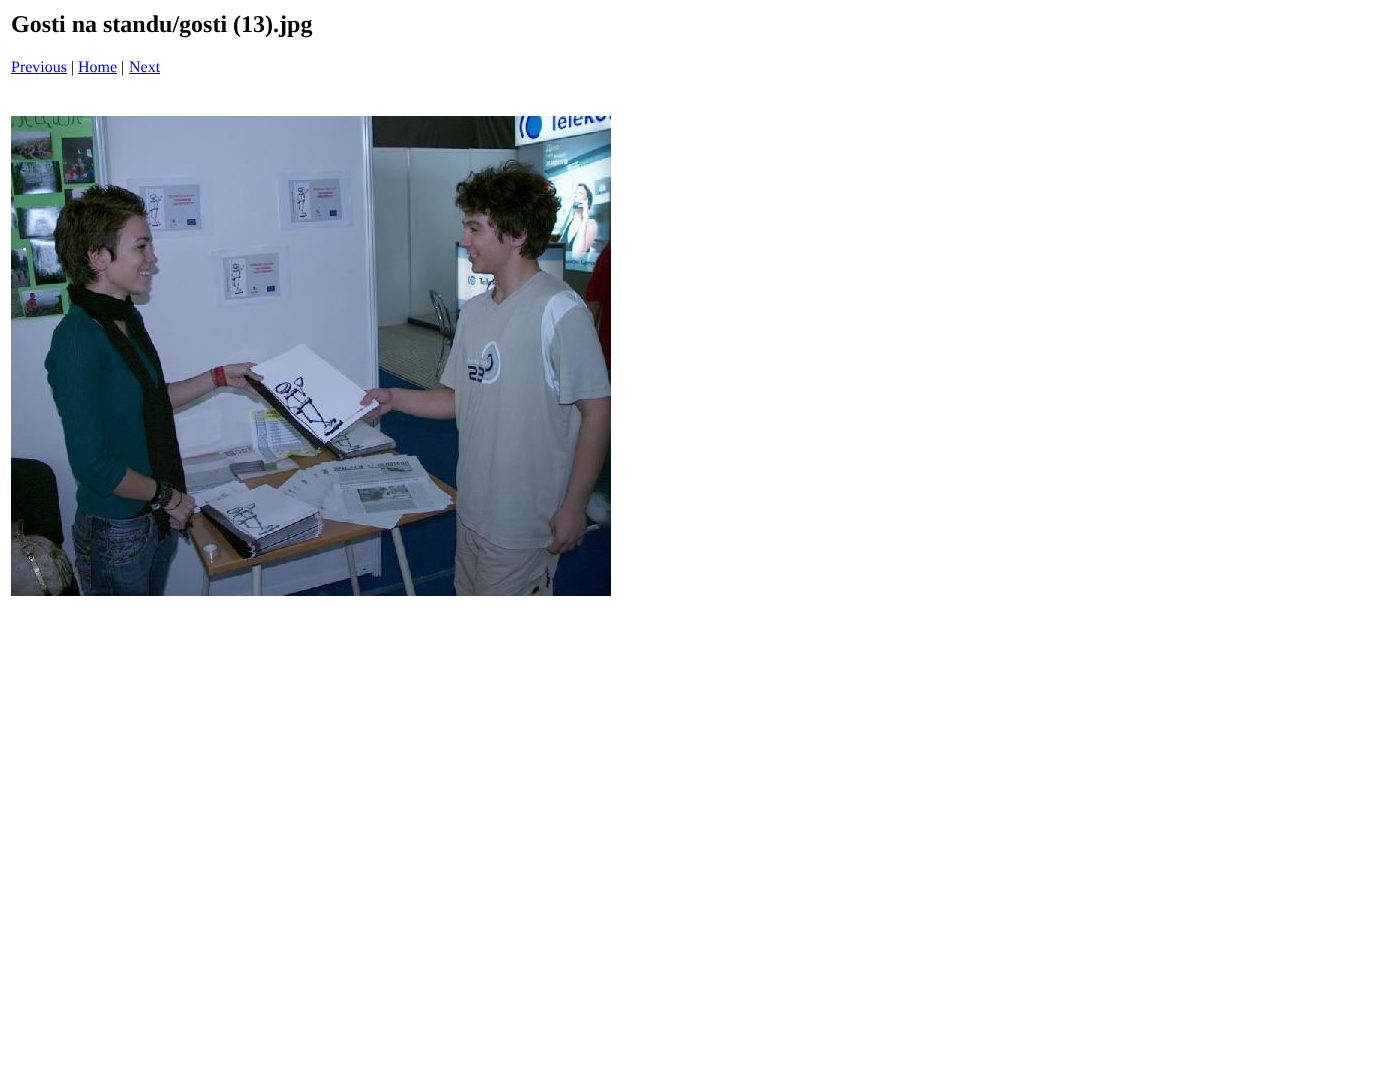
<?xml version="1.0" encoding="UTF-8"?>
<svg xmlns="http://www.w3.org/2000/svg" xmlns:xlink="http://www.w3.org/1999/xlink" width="1378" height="1078">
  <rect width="100%" height="100%" fill="#ffffff" />
  <rect x="11" y="73" width="56" height="1" fill="#0000ee" />
  <rect x="78" y="73" width="39" height="1" fill="#0000ee" />
  <rect x="129" y="73" width="31" height="1" fill="#0000ee" />
  <image x="11" y="116" width="600" height="480" xlink:href="image1.png" />
  <text x="11" y="32" style="font-family: Liberation Serif; font-size: 24px; font-weight: bold; fill: #000000">Gosti na standu/gosti (13).jpg</text>
  <text x="11" y="72" style="font-family: Liberation Serif; font-size: 16px; fill: #0000ee">Previous</text>
  <text x="71" y="72" style="font-family: Liberation Serif; font-size: 16px; fill: #000000">|</text>
  <text x="78" y="72" style="font-family: Liberation Serif; font-size: 16px; fill: #0000ee">Home</text>
  <text x="121" y="72" style="font-family: Liberation Serif; font-size: 16px; fill: #000000">|</text>
  <text x="129" y="72" style="font-family: Liberation Serif; font-size: 16px; fill: #0000ee">Next</text>
</svg>
